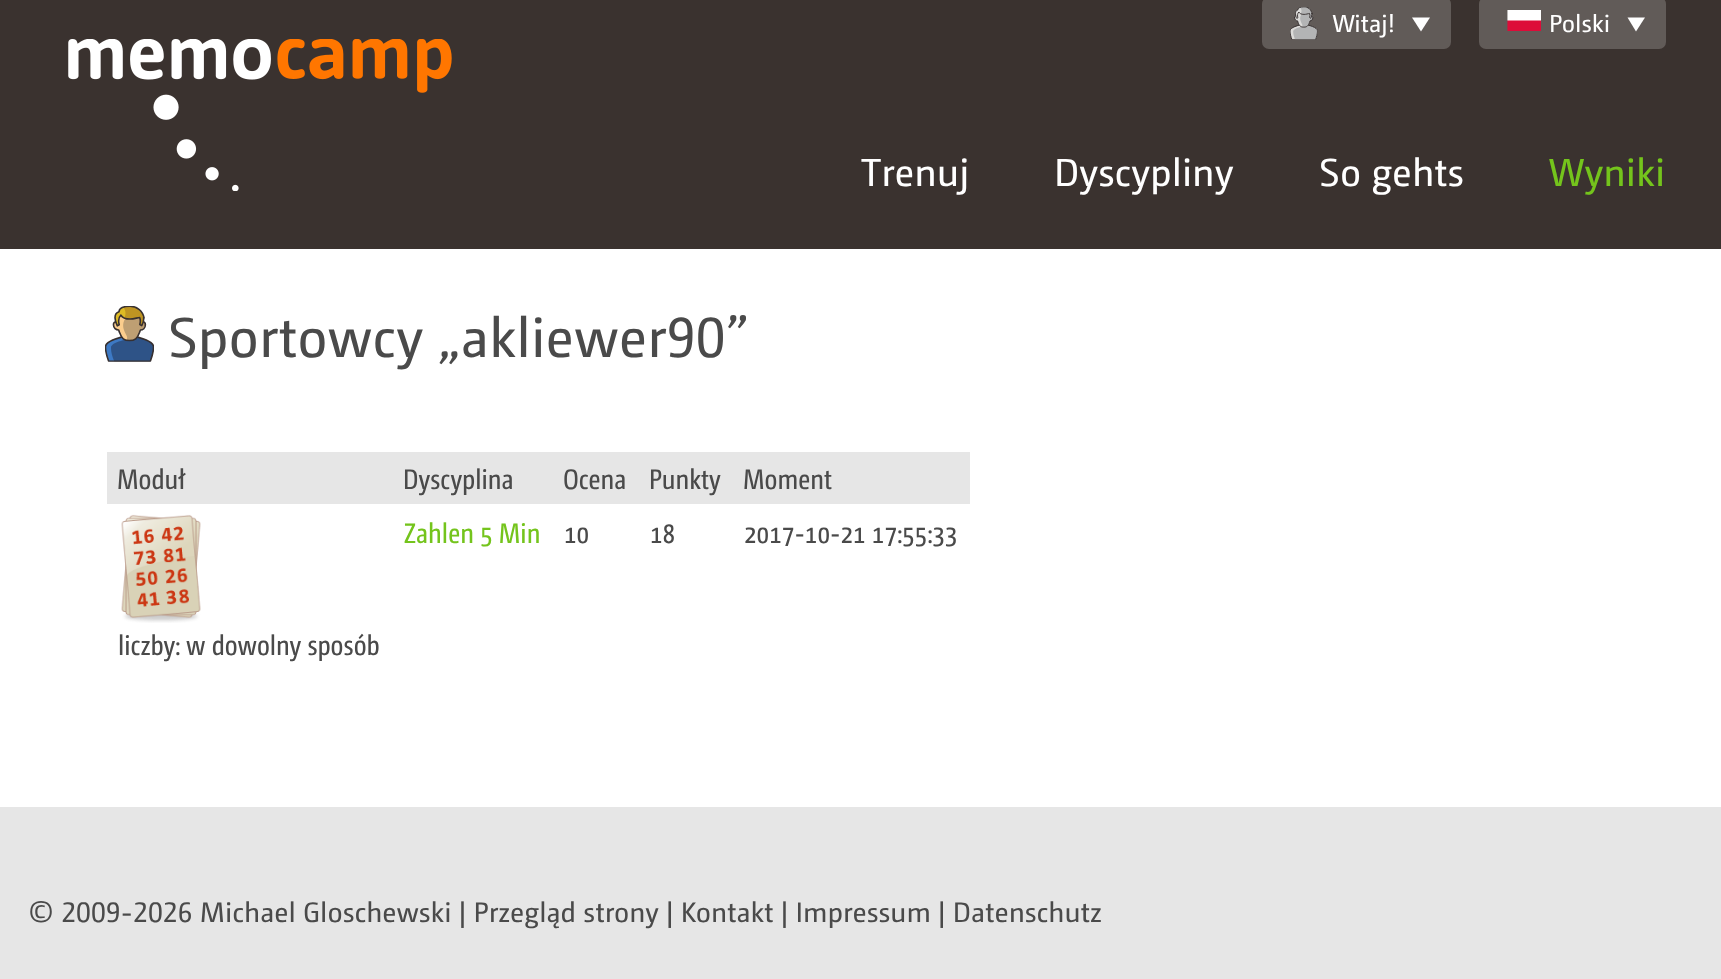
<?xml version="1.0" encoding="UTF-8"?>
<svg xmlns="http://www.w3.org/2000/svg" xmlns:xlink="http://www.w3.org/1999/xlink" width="1721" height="979">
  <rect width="100%" height="100%" fill="#ffffff" />
  <rect width="1721" height="249" fill="#3a322f" />
  <image x="68" y="39" width="384" height="152" xlink:href="image1.png" />
  <rect x="1262" y="-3" width="189" height="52" rx="7" fill="#615b58" />
  <image x="1290" y="7" width="28" height="33" xlink:href="image2.png" />
  <path d="M 1412 17.5 h 18 l -9 14 z" fill="#ffffff" />
  <rect x="1479" y="-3" width="187" height="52" rx="7" fill="#615b58" />
  <image x="1507" y="10" width="34" height="21" xlink:href="image3.png" />
  <path d="M 1627.5 17.5 h 17.5 l -9 14 z" fill="#ffffff" />
  <image x="105" y="306" width="49" height="56" xlink:href="image4.png" />
  <rect x="107" y="452" width="863" height="52" fill="#e6e6e6" />
  <image x="121" y="514" width="80" height="109" xlink:href="image5.png" />
  <rect y="807" width="1721" height="172" fill="#e6e6e6" />
  <text x="1332" y="32" style="font-family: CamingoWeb; font-size: 24.5px; fill: #ffffff">Witaj!</text>
  <text x="1549" y="32" style="font-family: CamingoWeb; font-size: 24.5px; fill: #ffffff">Polski</text>
  <text x="861" y="186" style="font-family: CamingoWeb; font-size: 39px; fill: #ffffff">Trenuj</text>
  <text x="1054" y="186" style="font-family: CamingoWeb; font-size: 39px; fill: #ffffff">Dyscypliny</text>
  <text x="1319" y="186" style="font-family: CamingoWeb; font-size: 39px; fill: #ffffff">So gehts</text>
  <text x="1548" y="186" style="font-family: CamingoWeb; font-size: 39px; fill: #74c41c">Wyniki</text>
  <text x="168" y="357" style="font-family: CamingoWeb; font-size: 56px; fill: #4a4a4a">Sportowcy „akliewer90</text>
  <text x="726" y="357" style="font-family: CamingoWeb; font-size: 56px; fill: #4a4a4a">”</text>
  <text x="117" y="489" style="font-family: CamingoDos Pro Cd; font-size: 28px; fill: #4a4a4a">Moduł</text>
  <text x="403" y="489" style="font-family: CamingoDos Pro Cd; font-size: 28px; fill: #4a4a4a">Dyscyplina</text>
  <text x="563" y="489" style="font-family: CamingoDos Pro Cd; font-size: 28px; fill: #4a4a4a">Ocena</text>
  <text x="649" y="489" style="font-family: CamingoDos Pro Cd; font-size: 28px; fill: #4a4a4a">Punkty</text>
  <text x="743" y="489" style="font-family: CamingoDos Pro Cd; font-size: 28px; fill: #4a4a4a">Moment</text>
  <text x="404" y="543" style="font-family: CamingoDos Pro Cd; font-size: 28px; fill: #74c41c">Zahlen 5 Min</text>
  <text x="564" y="543" style="font-family: CamingoDos Pro Cd; font-size: 28px; fill: #4a4a4a">10</text>
  <text x="650" y="543" style="font-family: CamingoDos Pro Cd; font-size: 28px; fill: #4a4a4a">18</text>
  <text x="744" y="543" style="font-family: CamingoDos Pro Cd; font-size: 28px; fill: #4a4a4a">2017-10-21 17:55:33</text>
  <text x="118" y="655" style="font-family: CamingoDos Pro Cd; font-size: 28px; fill: #4a4a4a">liczby: w dowolny sposób</text>
  <text x="28" y="922" style="font-family: CamingoWeb; font-size: 28px; fill: #4a4a4a">© 2009-2026 Michael Gloschewski | Przegląd strony | Kontakt | Impressum | Datenschutz</text>
</svg>
